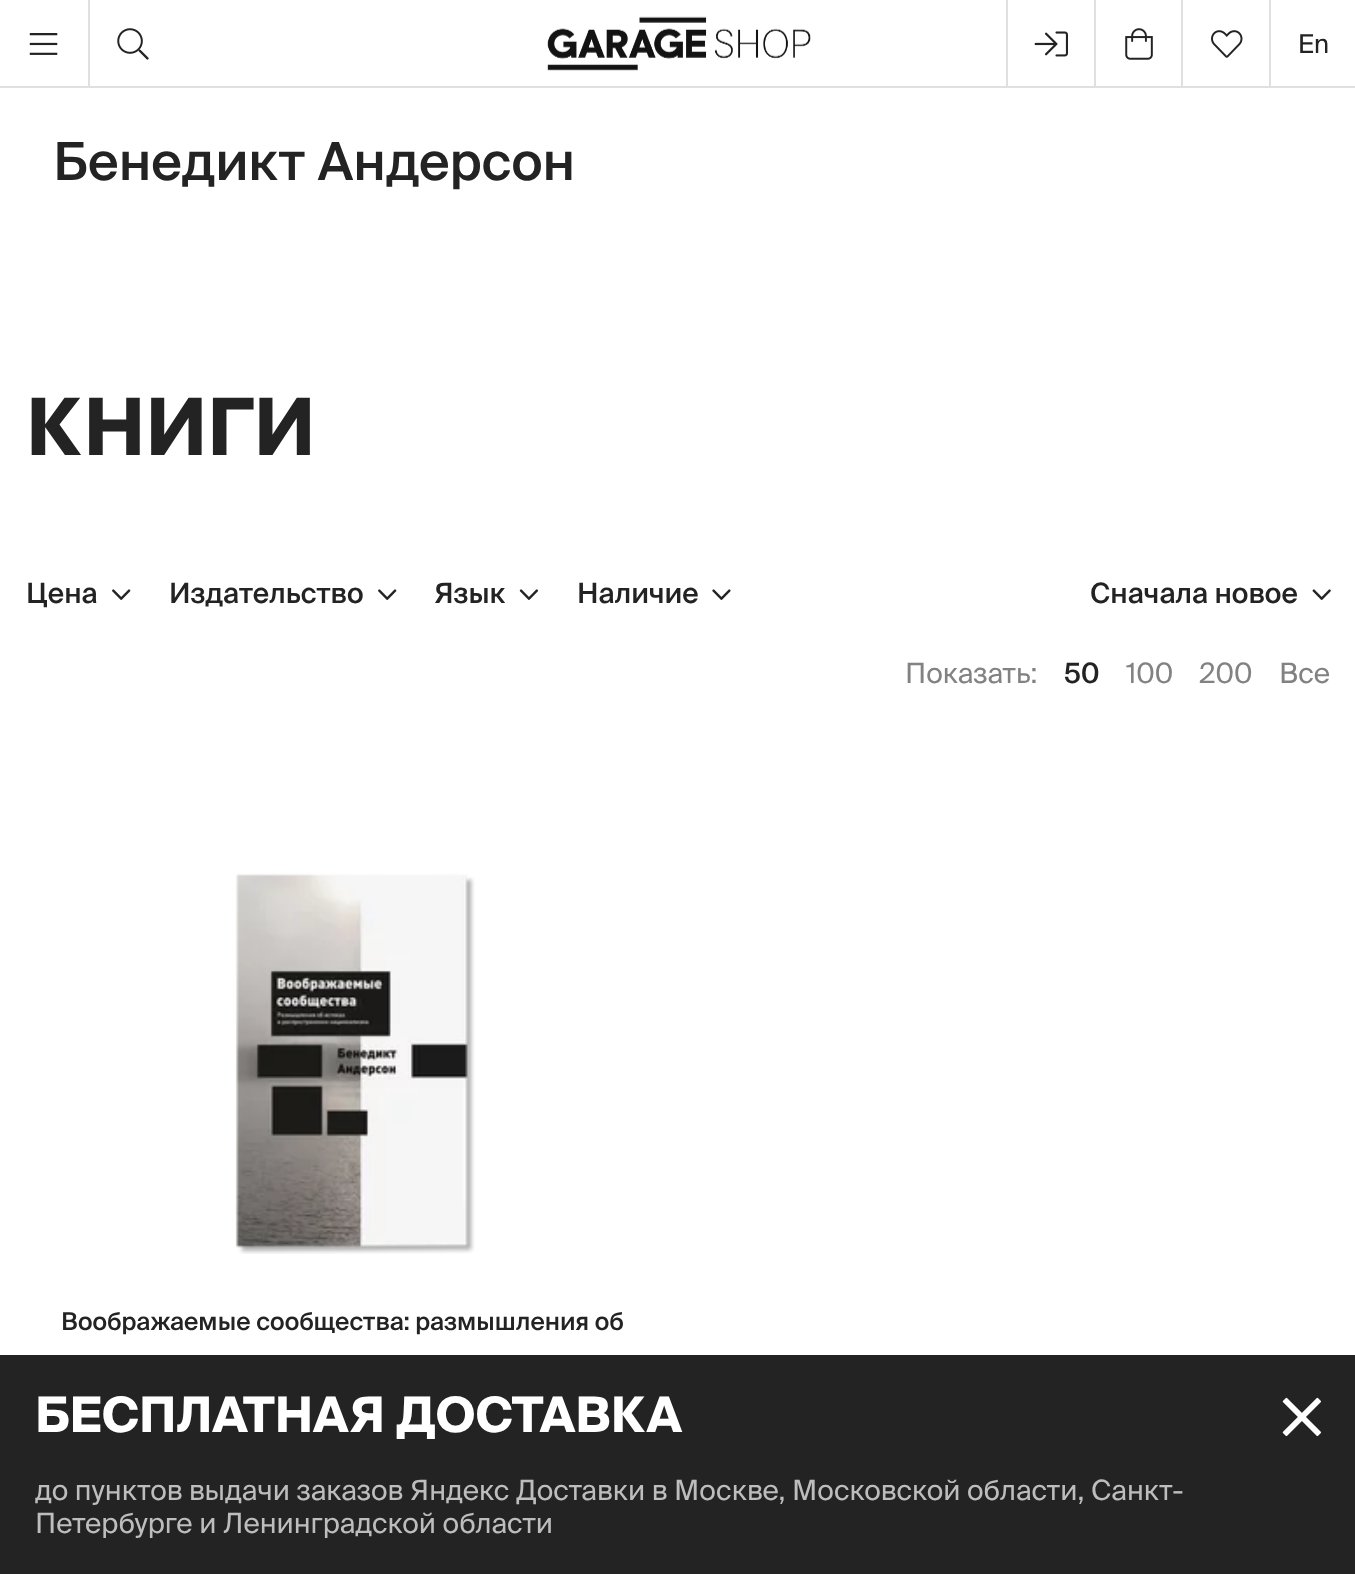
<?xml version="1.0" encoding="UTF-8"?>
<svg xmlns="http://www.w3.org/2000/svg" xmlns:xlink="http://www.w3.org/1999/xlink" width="1355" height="1574">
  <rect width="100%" height="100%" fill="#ffffff" />
  <rect y="86" width="1355" height="2" fill="#e0e0e0" />
  <image x="29" y="33" width="29" height="22" xlink:href="image1.png" />
  <rect x="88" width="2" height="88" fill="#e0e0e0" />
  <image x="117" y="28" width="32" height="32" xlink:href="image2.png" />
  <image x="547" y="16" width="264" height="55" xlink:href="image3.png" />
  <rect x="1006" width="2" height="88" fill="#e0e0e0" />
  <image x="1034" y="31" width="34" height="26" xlink:href="image4.png" />
  <rect x="1094" width="2" height="88" fill="#e0e0e0" />
  <image x="1125" y="28" width="28" height="32" xlink:href="image5.png" />
  <rect x="1181" width="2" height="88" fill="#e0e0e0" />
  <image x="1211" y="30" width="32" height="28" xlink:href="image6.png" />
  <rect x="1269" width="2" height="88" fill="#e0e0e0" />
  <image x="112" y="589" width="19" height="11" xlink:href="image7.png" />
  <image x="378" y="589" width="19" height="11" xlink:href="image7.png" />
  <image x="519" y="589" width="20" height="11" xlink:href="image8.png" />
  <image x="712" y="589" width="19" height="11" xlink:href="image9.png" />
  <image x="1312" y="589" width="19" height="11" xlink:href="image10.png" />
  <image x="235" y="873" width="240" height="381" xlink:href="image11.png" />
  <rect y="1355" width="1355" height="219" fill="#232323" />
  <image x="1282" y="1397" width="39" height="40" xlink:href="image12.png" />
  <text x="1298" y="53" style="font-family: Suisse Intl; font-size: 26px; fill: #232323">En</text>
  <text x="53" y="180" style="font-family: Suisse Intl; font-size: 52.5px; font-weight: 500; fill: #232323">Бенедикт Андерсон</text>
  <text x="26" y="455" style="font-family: Suisse Intl; font-size: 79px; font-weight: bold; fill: #232323">КНИГИ</text>
  <text x="26" y="603" style="font-family: Suisse Intl; font-size: 28px; font-weight: 500; fill: #232323">Цена</text>
  <text x="169" y="603" style="font-family: Suisse Intl; font-size: 28px; font-weight: 500; fill: #232323">Издательство</text>
  <text x="434" y="603" style="font-family: Suisse Intl; font-size: 28px; font-weight: 500; fill: #232323">Язык</text>
  <text x="577" y="603" style="font-family: Suisse Intl; font-size: 28px; font-weight: 500; fill: #232323">Наличие</text>
  <text x="1090" y="603" style="font-family: Suisse Intl; font-size: 28px; font-weight: 500; fill: #232323">Сначала новое</text>
  <text x="905" y="683" style="font-family: Suisse Intl; font-size: 28px; fill: #828282">Показать:</text>
  <text x="1064" y="683" style="font-family: Suisse Intl; font-size: 28px; font-weight: 500; fill: #232323">50</text>
  <text x="1126" y="683" style="font-family: Suisse Intl; font-size: 28px; fill: #828282">100</text>
  <text x="1199" y="683" style="font-family: Suisse Intl; font-size: 28px; fill: #828282">200</text>
  <text x="1279" y="683" style="font-family: Suisse Intl; font-size: 28px; fill: #828282">Все</text>
  <text x="61" y="1330" style="font-family: Suisse Intl; font-size: 24.5px; font-weight: 500; fill: #232323">Воображаемые сообщества: размышления об</text>
  <text x="35" y="1432" style="font-family: Suisse Intl; font-size: 49px; font-weight: bold; fill: #ffffff">БЕСПЛАТНАЯ ДОСТАВКА</text>
  <text x="35" y="1500" style="font-family: Suisse Intl; font-size: 28px; fill: #bdbdbd">до пунктов выдачи заказов Яндекс Доставки в Москве, Московской области, Санкт-</text>
  <text x="35" y="1533" style="font-family: Suisse Intl; font-size: 28px; fill: #bdbdbd">Петербурге и Ленинградской области</text>
</svg>
